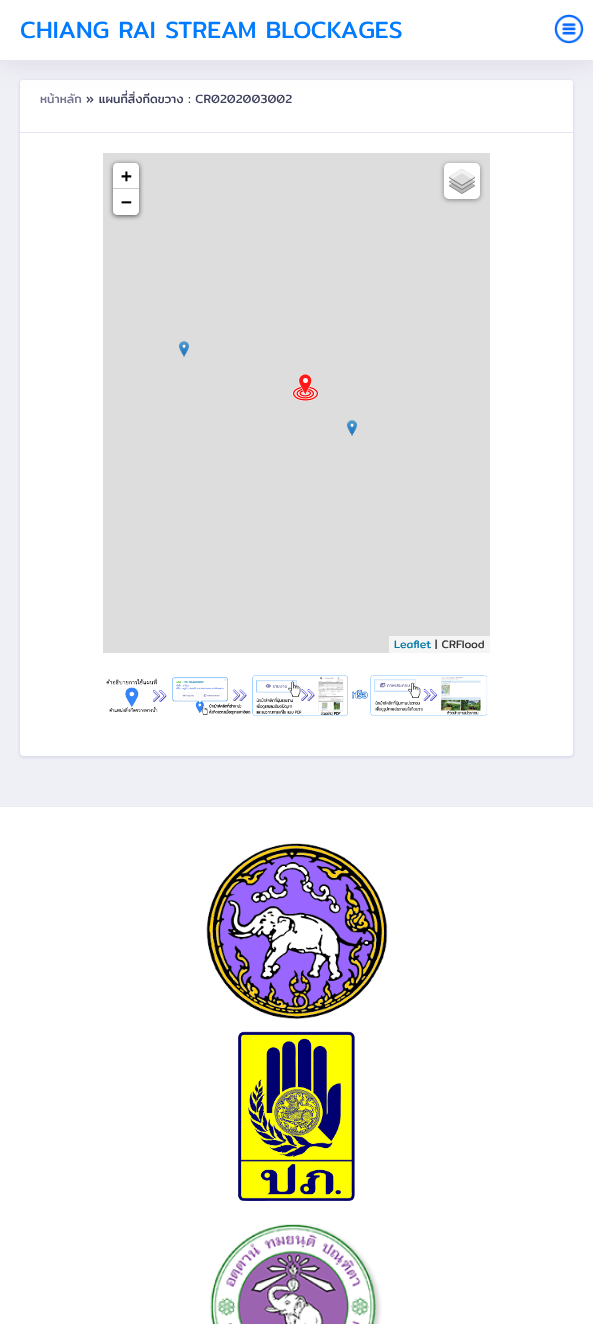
<?xml version="1.0" encoding="UTF-8"?>
<svg xmlns="http://www.w3.org/2000/svg" xmlns:xlink="http://www.w3.org/1999/xlink" width="593" height="1324">
  <rect width="100%" height="100%" fill="#efeff6" />
  <rect x="19" y="80" width="555" height="678" rx="5" fill="#9a9acc" fill-opacity="0.22" filter="blur(1px)" />
  <rect x="20" y="80" width="553" height="676" rx="4" fill="#ffffff" />
  <path d="M 23 80 h 547 c 1.5 0 3 1.5 3 3 v 50 h -553 v -50 c 0 -1.5 1.5 -3 3 -3 z" fill="#ffffff" />
  <rect width="593" height="61" fill="#523f69" fill-opacity="0.13" filter="blur(14px)" />
  <rect width="593" height="60" fill="#ffffff" />
  <rect y="60" width="593" height="1" fill="#e6e6f2" />
  <image x="554" y="14" width="30" height="30" xlink:href="image1.png" />
  <rect x="20" y="132" width="553" height="1" fill="#e6e6f2" />
  <rect x="103" y="153" width="387" height="500" fill="#dddddd" />
  <rect x="113" y="164" width="26" height="52" rx="4" fill="#000000" fill-opacity="0.65" filter="blur(2.5px)" />
  <path d="M 117 163 h 18 c 2 0 4 2 4 4 v 22 h -26 v -22 c 0 -2 2 -4 4 -4 z" fill="#ffffff" />
  <rect x="113" y="188" width="26" height="1" fill="#cccccc" />
  <path d="M 113 189 h 26 v 22 c 0 2 -2 4 -4 4 h -18 c -2 0 -4 -2 -4 -4 z" fill="#ffffff" />
  <rect x="444" y="164" width="36" height="36" rx="5" fill="#000000" fill-opacity="0.4" filter="blur(2.5px)" />
  <rect x="444" y="163" width="36" height="36" rx="5" fill="#ffffff" />
  <image x="449" y="169" width="26" height="25" xlink:href="image2.png" />
  <rect x="389" y="636" width="101" height="17" fill="#f5f5f5" />
  <image x="179" y="341" width="10" height="16" xlink:href="image3.png" />
  <image x="292" y="374" width="27" height="27" xlink:href="image4.png" />
  <image x="347" y="420" width="10" height="16" xlink:href="image3.png" />
  <image x="106" y="675" width="382" height="41" xlink:href="image5.png" />
  <rect y="807" width="593" height="517" fill="#ffffff" />
  <rect y="806" width="593" height="1" fill="#eaedef" />
  <image x="206" y="843" width="182" height="176" xlink:href="image6.png" />
  <image x="237" y="1031" width="118" height="170" xlink:href="image7.png" />
  <image x="210" y="1224" width="172" height="100" xlink:href="image8.png" />
  <text x="20" y="38" style="font-family: Mitr; font-size: 23.75px; fill: #007bff">CHIANG RAI STREAM BLOCKAGES</text>
  <text x="40" y="103" style="font-family: Mitr; font-size: 12px; fill: #71748d">หน้าหลัก</text>
  <text x="86" y="103" style="font-family: Mitr; font-size: 12px; fill: #3d405c">» แผนที่สิ่งกีดขวาง : CR0202003002</text>
  <text x="121" y="182" style="font-family: DejaVu Sans Mono; font-size: 18px; font-weight: bold; fill: #000000">+</text>
  <text x="121" y="208" style="font-family: DejaVu Sans Mono; font-size: 18px; font-weight: bold; fill: #000000">−</text>
  <text x="394" y="648" style="font-family: Mitr; font-size: 11px; fill: #0078a8">Leaflet</text>
  <text x="435" y="648" style="font-family: Mitr; font-size: 11px; fill: #333333">| CRFlood</text>
</svg>
